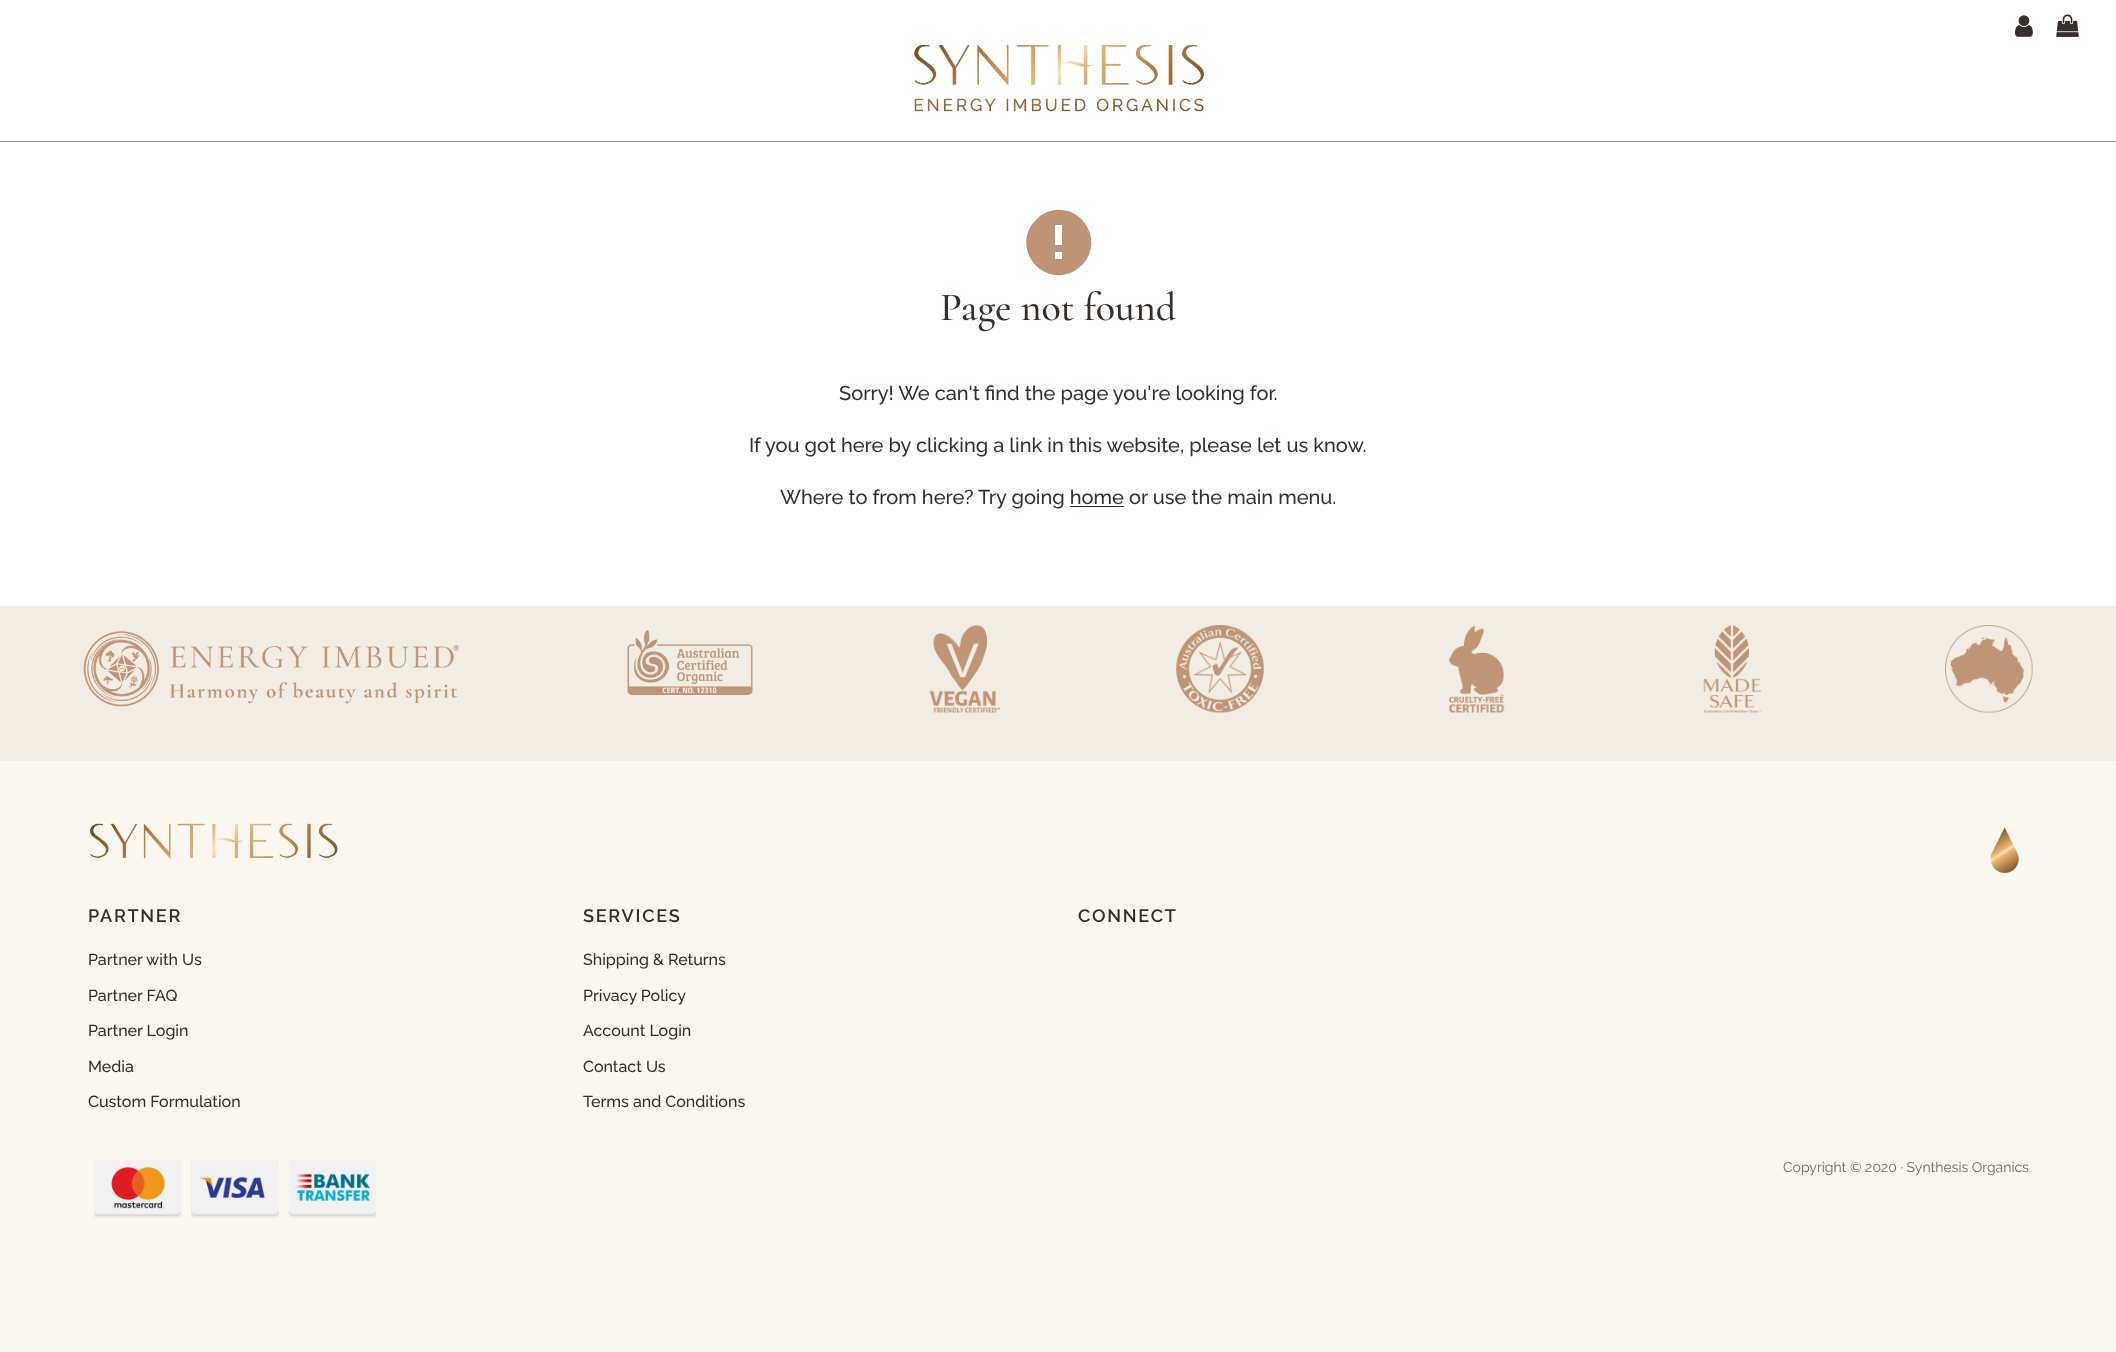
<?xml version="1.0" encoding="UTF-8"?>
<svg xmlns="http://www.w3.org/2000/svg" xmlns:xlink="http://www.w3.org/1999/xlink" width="2116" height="1352">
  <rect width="100%" height="100%" fill="#ffffff" />
  <image x="2015" y="15" width="18" height="22" xlink:href="image1.png" />
  <image x="2056" y="14" width="23" height="23" xlink:href="image2.png" />
  <image x="914" y="44" width="290" height="68" xlink:href="image3.png" />
  <rect y="141" width="2116" height="1" fill="#9b9796" />
  <path d="M 1036 220 c 5 -6 12 -9 19 -10 c 31 -3 48 34 27 55 c -6 6 -12 9 -20 10 c -30 3 -48 -34 -26 -55 z m 26 39 v -7 h -7 v 7 z m 0 -14 v -20 h -7 v 20 z" fill="#bf9474" />
  <rect x="1070" y="506" width="54" height="1" fill="#372e2c" />
  <rect y="606" width="2116" height="155" fill="#f2ede4" />
  <image x="83" y="631" width="376" height="76" xlink:href="image4.png" />
  <image x="627" y="629" width="126" height="66" xlink:href="image5.png" />
  <image x="929" y="625" width="72" height="88" xlink:href="image6.png" />
  <image x="1176" y="625" width="88" height="88" xlink:href="image7.png" />
  <image x="1448" y="625" width="57" height="88" xlink:href="image8.png" />
  <image x="1703" y="625" width="59" height="88" xlink:href="image9.png" />
  <image x="1945" y="625" width="88" height="88" xlink:href="image10.png" />
  <rect y="761" width="2116" height="591" fill="#f9f7f0" />
  <image x="90" y="823" width="248" height="36" xlink:href="image11.png" />
  <image x="1990" y="827" width="29" height="46" xlink:href="image12.png" />
  <rect x="94" y="1160" width="87" height="58" fill="#f2eee4" />
  <image x="93" y="1160" width="89" height="57" xlink:href="image13.png" />
  <rect x="191" y="1160" width="88" height="58" fill="#f2eee4" />
  <image x="191" y="1160" width="88" height="57" xlink:href="image14.png" />
  <rect x="289" y="1160" width="87" height="58" fill="#f2eee4" />
  <image x="288" y="1160" width="89" height="57" xlink:href="image15.png" />
  <text x="940" y="320" style="font-family: Cormorant Garamond; font-size: 40px; font-weight: 500; fill: #372e2c">Page not found</text>
  <text x="839" y="400" style="font-family: Raleway; font-size: 20px; font-weight: 500; fill: #372e2c">Sorry! We can't find the page you're looking for.</text>
  <text x="749" y="452" style="font-family: Raleway; font-size: 20px; font-weight: 500; fill: #372e2c">If you got here by clicking a link in this website, please let us know.</text>
  <text x="780" y="504" style="font-family: Raleway; font-size: 20px; font-weight: 500; fill: #372e2c">Where to from here? Try going home or use the main menu.</text>
  <text x="88" y="922" style="font-family: Raleway; font-size: 18px; font-weight: 600; letter-spacing: 1.75px; fill: #372e2c">PARTNER</text>
  <text x="88" y="965" style="font-family: Raleway; font-size: 16px; font-weight: 500; fill: #372e2c">Partner with Us</text>
  <text x="88" y="1001" style="font-family: Raleway; font-size: 16px; font-weight: 500; fill: #372e2c">Partner FAQ</text>
  <text x="88" y="1036" style="font-family: Raleway; font-size: 16px; font-weight: 500; fill: #372e2c">Partner Login</text>
  <text x="88" y="1072" style="font-family: Raleway; font-size: 16px; font-weight: 500; fill: #372e2c">Media</text>
  <text x="88" y="1107" style="font-family: Raleway; font-size: 16px; font-weight: 500; fill: #372e2c">Custom Formulation</text>
  <text x="583" y="922" style="font-family: Raleway; font-size: 18px; font-weight: 600; letter-spacing: 1.75px; fill: #372e2c">SERVICES</text>
  <text x="583" y="965" style="font-family: Raleway; font-size: 16px; font-weight: 500; fill: #372e2c">Shipping &amp; Returns</text>
  <text x="583" y="1001" style="font-family: Raleway; font-size: 16px; font-weight: 500; fill: #372e2c">Privacy Policy</text>
  <text x="583" y="1036" style="font-family: Raleway; font-size: 16px; font-weight: 500; fill: #372e2c">Account Login</text>
  <text x="583" y="1072" style="font-family: Raleway; font-size: 16px; font-weight: 500; fill: #372e2c">Contact Us</text>
  <text x="583" y="1107" style="font-family: Raleway; font-size: 16px; font-weight: 500; fill: #372e2c">Terms and Conditions</text>
  <text x="1078" y="922" style="font-family: Raleway; font-size: 18px; font-weight: 600; letter-spacing: 1.75px; fill: #372e2c">CONNECT</text>
  <text x="1783" y="1172" style="font-family: Raleway; font-size: 14px; fill: #716a67">Copyright © 2020 · Synthesis Organics</text>
</svg>
